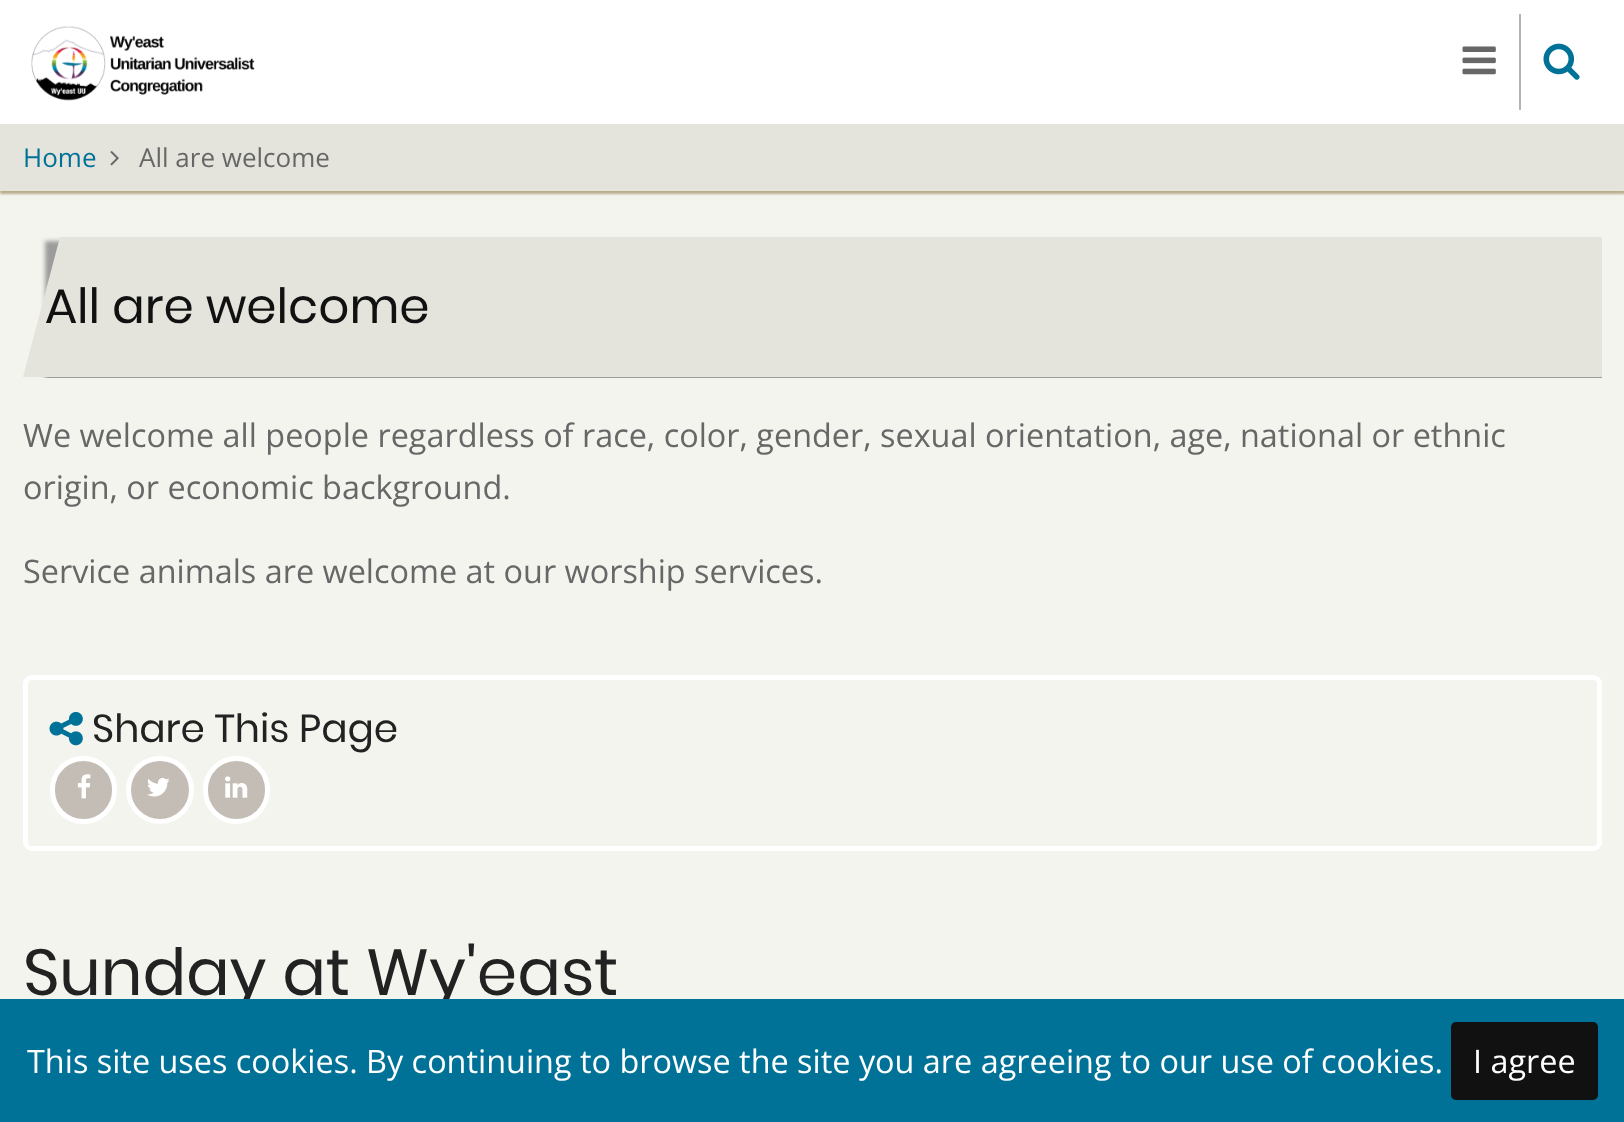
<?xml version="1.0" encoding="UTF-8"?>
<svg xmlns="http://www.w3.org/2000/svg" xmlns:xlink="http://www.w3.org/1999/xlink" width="1624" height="1122">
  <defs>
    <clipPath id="clip1"><rect x="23" y="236" width="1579" height="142" /></clipPath>
    <clipPath id="clip2"><rect x="23" y="236" width="1579" height="142" /></clipPath>
  </defs>
  <rect width="100%" height="100%" fill="#f4f4ef" />
  <rect y="126" width="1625" height="68" fill="#b9ad8c" filter="blur(1px)" />
  <rect width="1624" height="124" fill="#ffffff" />
  <image x="31" y="26" width="224" height="75" xlink:href="image1.png" />
  <image x="1462" y="46" width="34" height="29" xlink:href="image2.png" />
  <rect x="1519" y="14" width="2" height="96" fill="#b4b4b4" />
  <image x="1543" y="43" width="37" height="37" xlink:href="image3.png" />
  <rect y="124" width="1624" height="67" fill="#e4e4dd" />
  <image x="110" y="151" width="9" height="15" xlink:href="image4.png" />
  <g clip-path="url(#clip1)">
    <rect x="45" y="241" width="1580" height="142" fill="#9c9c9c" filter="blur(2px)" />
  </g>
  <g clip-path="url(#clip2)">
    <path d="M 60 237 h 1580 l -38 140 h -1579 z" fill="#e4e4dd" />
  </g>
  <rect x="25.5" y="677.5" width="1574" height="171" rx="6.5" fill="none" stroke="#ffffff" stroke-width="5" />
  <image x="49" y="712" width="34" height="34" xlink:href="image5.png" />
  <rect x="52.5" y="758.5" width="62" height="63" rx="31" fill="#c4bdb5" stroke="#ffffff" stroke-width="5" />
  <image x="77" y="774" width="14" height="25" xlink:href="image6.png" />
  <circle cx="160" cy="790" r="31.5" fill="#c4bdb5" stroke="#ffffff" stroke-width="5" />
  <image x="147" y="778" width="23" height="19" xlink:href="image7.png" />
  <rect x="205.5" y="758.5" width="62" height="63" rx="31" fill="#c4bdb5" stroke="#ffffff" stroke-width="5" />
  <image x="225" y="776" width="23" height="22" xlink:href="image8.png" />
  <text x="23" y="167" style="font-family: Open Sans; font-size: 26px; fill: #007297">Home</text>
  <text x="139" y="167" style="font-family: Open Sans; font-size: 26px; fill: #676767">All are welcome</text>
  <text x="45" y="323" style="font-family: Poppins; font-size: 48.5px; fill: #111111">All are welcome</text>
  <text x="23" y="447" style="font-family: Open Sans; font-size: 32.4px; fill: #676767">We welcome all people regardless of race, color, gender, sexual orientation, age, national or ethnic</text>
  <text x="23" y="499" style="font-family: Open Sans; font-size: 32.4px; fill: #676767">origin, or economic background.</text>
  <text x="23" y="583" style="font-family: Open Sans; font-size: 32.4px; fill: #676767">Service animals are welcome at our worship services.</text>
  <text x="92" y="742" style="font-family: Poppins; font-size: 39px; fill: #222222">Share This Page</text>
  <text x="23" y="995" style="font-family: Poppins; font-size: 64.75px; fill: #222222">Sunday at Wy'east</text>
  <rect y="999" width="1624" height="123" fill="#007297" />
  <text x="27" y="1073" style="font-family: Open Sans; font-size: 32.4px; fill: #ffffff">This site uses cookies. By continuing to browse the site you are agreeing to our use of cookies.</text>
  <rect x="1451" y="1022" width="147" height="78" rx="5" fill="#111111" />
  <text x="1473" y="1073" style="font-family: Open Sans; font-size: 32.4px; fill: #ffffff">I agree</text>
</svg>
